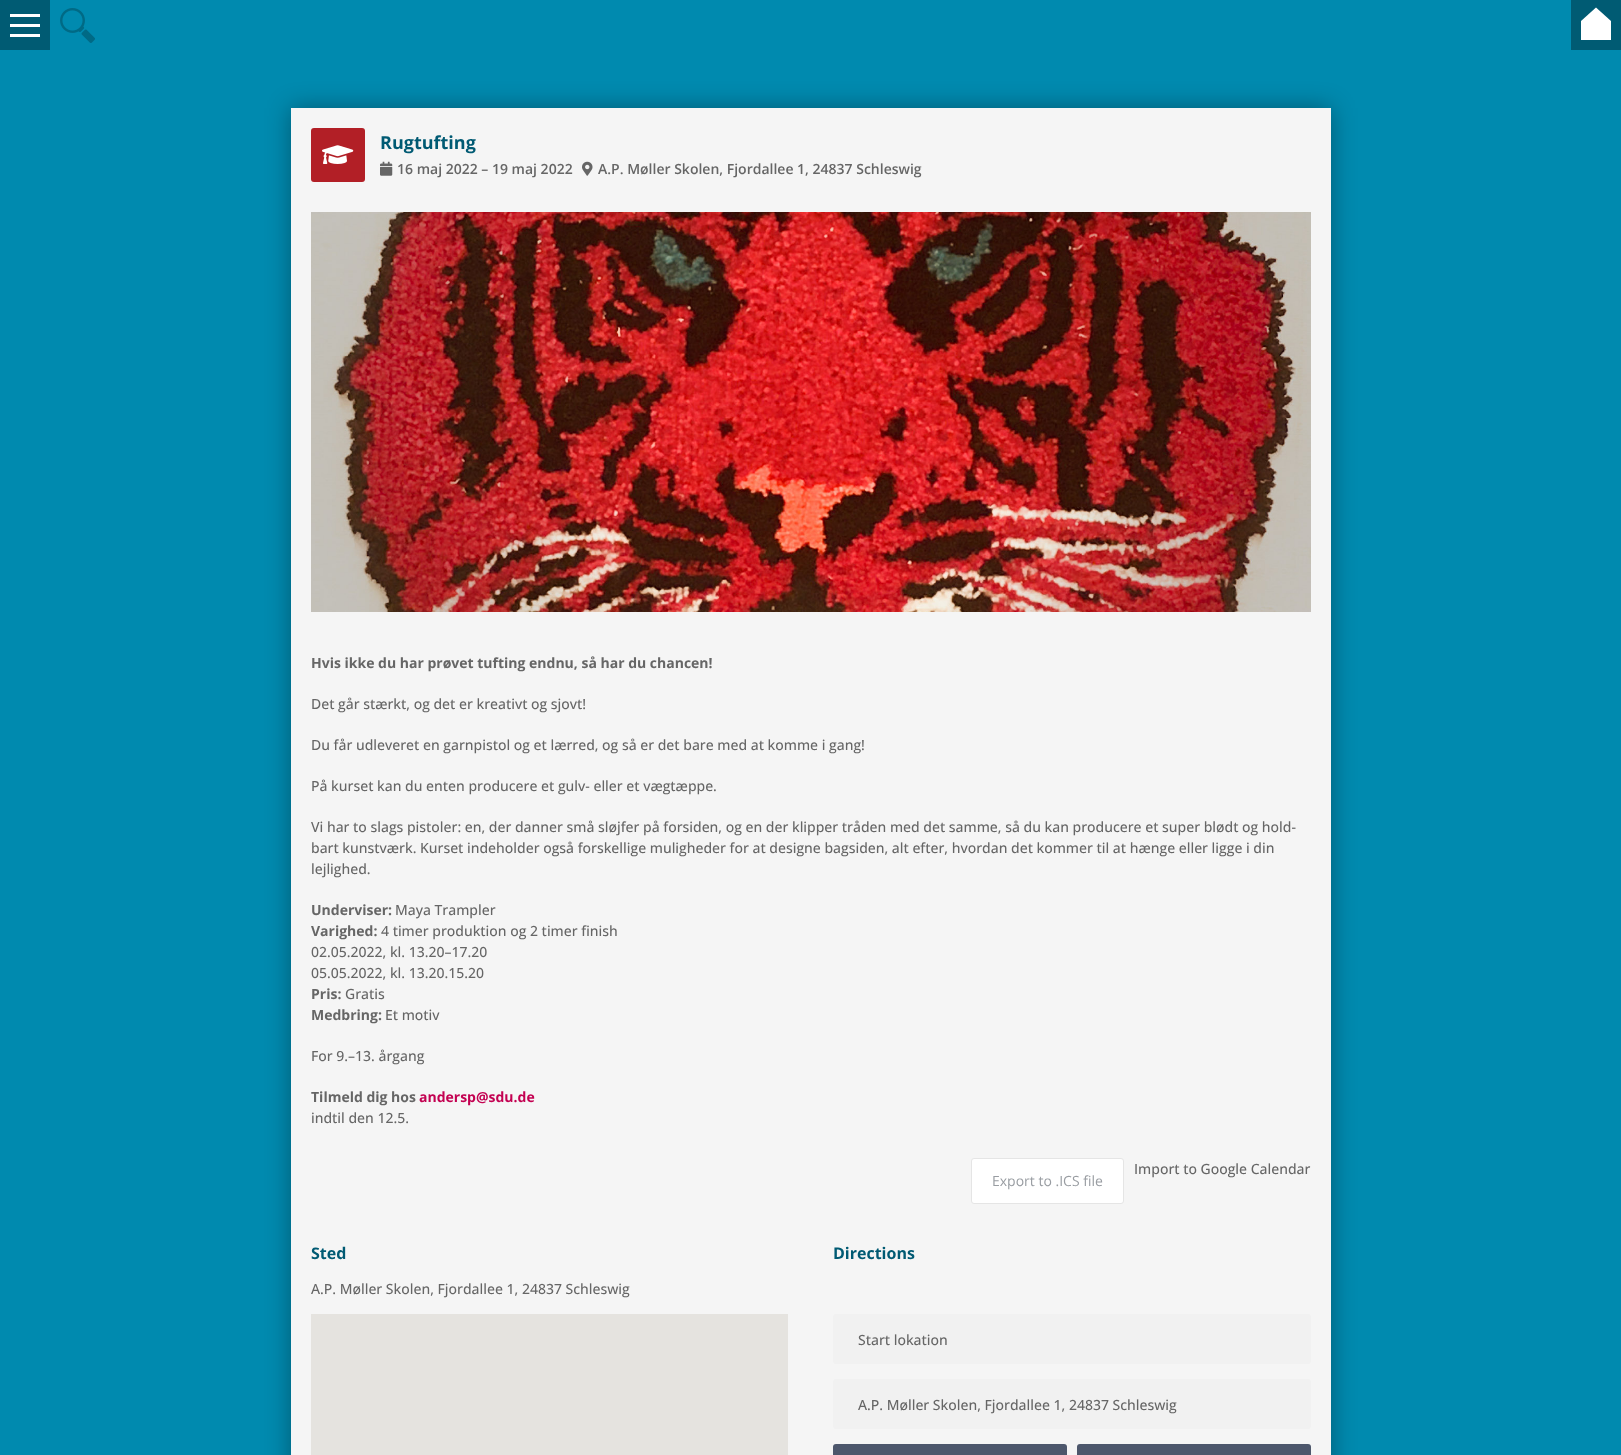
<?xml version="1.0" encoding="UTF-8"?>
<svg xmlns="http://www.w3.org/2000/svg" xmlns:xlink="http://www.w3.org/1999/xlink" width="1621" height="1455">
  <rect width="100%" height="100%" fill="#008aaf" />
  <rect width="50" height="50" fill="#005b73" />
  <rect x="10" y="24" width="30" height="3" fill="#ffffff" />
  <rect x="10" y="14" width="30" height="3" fill="#ffffff" />
  <rect x="10" y="34" width="30" height="3" fill="#ffffff" />
  <image x="60" y="8" width="35" height="35" xlink:href="image1.png" />
  <rect x="1571" width="50" height="50" fill="#005b73" />
  <path d="M 1596 7.5 l -15 13.5 v 19 h 30 v -19 z" fill="#ffffff" />
  <rect x="291" y="108" width="1040" height="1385" fill="#000000" fill-opacity="0.35" filter="blur(12.5px)" />
  <rect x="291" y="108" width="1040" height="1347" fill="#f5f5f5" />
  <rect x="311" y="128" width="54" height="54" rx="3" fill="#b21f26" />
  <image x="322" y="145" width="32" height="19" xlink:href="image2.png" />
  <image x="380" y="161" width="13" height="15" xlink:href="image3.png" />
  <image x="582" y="161" width="11" height="15" xlink:href="image4.png" />
  <image x="311" y="212" width="1000" height="400" xlink:href="image5.png" />
  <rect x="971.5" y="1158.5" width="152" height="45" rx="2.5" fill="#ffffff" stroke="#e5e5e5" />
  <rect x="311" y="1314" width="477" height="141" fill="#e5e3df" />
  <rect x="833" y="1314" width="478" height="50" rx="3" fill="#f1f1f1" />
  <rect x="833" y="1379" width="478" height="50" rx="3" fill="#f1f1f1" />
  <rect x="833" y="1444" width="234" height="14" rx="3" fill="#4d576c" />
  <rect x="1077" y="1444" width="234" height="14" rx="3" fill="#4d576c" />
  <text x="380" y="149" style="font-family: Open Sans; font-size: 18px; font-weight: bold; fill: #005a73">Rugtufting</text>
  <text x="397" y="174" style="font-family: Open Sans; font-size: 14px; font-weight: 600; fill: #666666">16 maj 2022 – 19 maj 2022</text>
  <text x="598" y="174" style="font-family: Open Sans; font-size: 14px; font-weight: 600; fill: #666666">A.P. Møller Skolen, Fjordallee 1, 24837 Schleswig</text>
  <text x="311" y="668" style="font-family: Open Sans; font-size: 14px; font-weight: bold; fill: #666666">Hvis ikke du har prøvet tufting endnu, så har du chancen!</text>
  <text x="311" y="709" style="font-family: Open Sans; font-size: 14px; font-weight: 500; fill: #666666">Det går stærkt, og det er kreativt og sjovt!</text>
  <text x="311" y="750" style="font-family: Open Sans; font-size: 14px; font-weight: 500; fill: #666666">Du får udleveret en garnpistol og et lærred, og så er det bare med at komme i gang!</text>
  <text x="311" y="791" style="font-family: Open Sans; font-size: 14px; font-weight: 500; fill: #666666">På kurset kan du enten producere et gulv- eller et vægtæppe.</text>
  <text x="311" y="832" style="font-family: Open Sans; font-size: 14px; font-weight: 500; fill: #666666">Vi har to slags pistoler: en, der danner små sløjfer på forsiden, og en der klipper tråden med det samme, så du kan producere et super blødt og hold-</text>
  <text x="311" y="853" style="font-family: Open Sans; font-size: 14px; font-weight: 500; fill: #666666">bart kunstværk. Kurset indeholder også forskellige muligheder for at designe bagsiden, alt efter, hvordan det kommer til at hænge eller ligge i din</text>
  <text x="311" y="874" style="font-family: Open Sans; font-size: 14px; font-weight: 500; fill: #666666">lejlighed.</text>
  <text x="311" y="915" style="font-family: Open Sans; font-size: 14px; font-weight: bold; fill: #666666">Underviser:</text>
  <text x="395" y="915" style="font-family: Open Sans; font-size: 14px; font-weight: 500; fill: #666666">Maya Trampler</text>
  <text x="311" y="936" style="font-family: Open Sans; font-size: 14px; font-weight: bold; fill: #666666">Varighed:</text>
  <text x="381" y="936" style="font-family: Open Sans; font-size: 14px; font-weight: 500; fill: #666666">4 timer produktion og 2 timer finish</text>
  <text x="311" y="957" style="font-family: Open Sans; font-size: 14px; font-weight: 500; fill: #666666">02.05.2022, kl. 13.20–17.20</text>
  <text x="311" y="978" style="font-family: Open Sans; font-size: 14px; font-weight: 500; fill: #666666">05.05.2022, kl. 13.20.15.20</text>
  <text x="311" y="999" style="font-family: Open Sans; font-size: 14px; font-weight: bold; fill: #666666">Pris:</text>
  <text x="345" y="999" style="font-family: Open Sans; font-size: 14px; font-weight: 500; fill: #666666">Gratis</text>
  <text x="311" y="1020" style="font-family: Open Sans; font-size: 14px; font-weight: bold; fill: #666666">Medbring:</text>
  <text x="385" y="1020" style="font-family: Open Sans; font-size: 14px; font-weight: 500; fill: #666666">Et motiv</text>
  <text x="311" y="1061" style="font-family: Open Sans; font-size: 14px; font-weight: 500; fill: #666666">For 9.–13. årgang</text>
  <text x="311" y="1102" style="font-family: Open Sans; font-size: 14px; font-weight: bold; fill: #666666">Tilmeld dig hos</text>
  <text x="419" y="1102" style="font-family: Open Sans; font-size: 14px; font-weight: bold; fill: #c30151">andersp@sdu.de</text>
  <text x="311" y="1123" style="font-family: Open Sans; font-size: 14px; font-weight: 500; fill: #666666">indtil den 12.5.</text>
  <text x="1134" y="1174" style="font-family: Open Sans; font-size: 14px; font-weight: 500; fill: #666666">Import to Google Calendar</text>
  <text x="992" y="1186" style="font-family: Open Sans; font-size: 14px; fill: #999da2">Export to .ICS file</text>
  <text x="311" y="1259" style="font-family: Open Sans; font-size: 16px; font-weight: bold; fill: #005a73">Sted</text>
  <text x="311" y="1294" style="font-family: Open Sans; font-size: 14px; font-weight: 500; fill: #666666">A.P. Møller Skolen, Fjordallee 1, 24837 Schleswig</text>
  <text x="833" y="1259" style="font-family: Open Sans; font-size: 16px; font-weight: bold; fill: #005a73">Directions</text>
  <text x="858" y="1345" style="font-family: Open Sans; font-size: 14px; font-weight: 500; fill: #666666">Start lokation</text>
  <text x="858" y="1410" style="font-family: Open Sans; font-size: 14px; font-weight: 500; fill: #666666">A.P. Møller Skolen, Fjordallee 1, 24837 Schleswig</text>
</svg>
